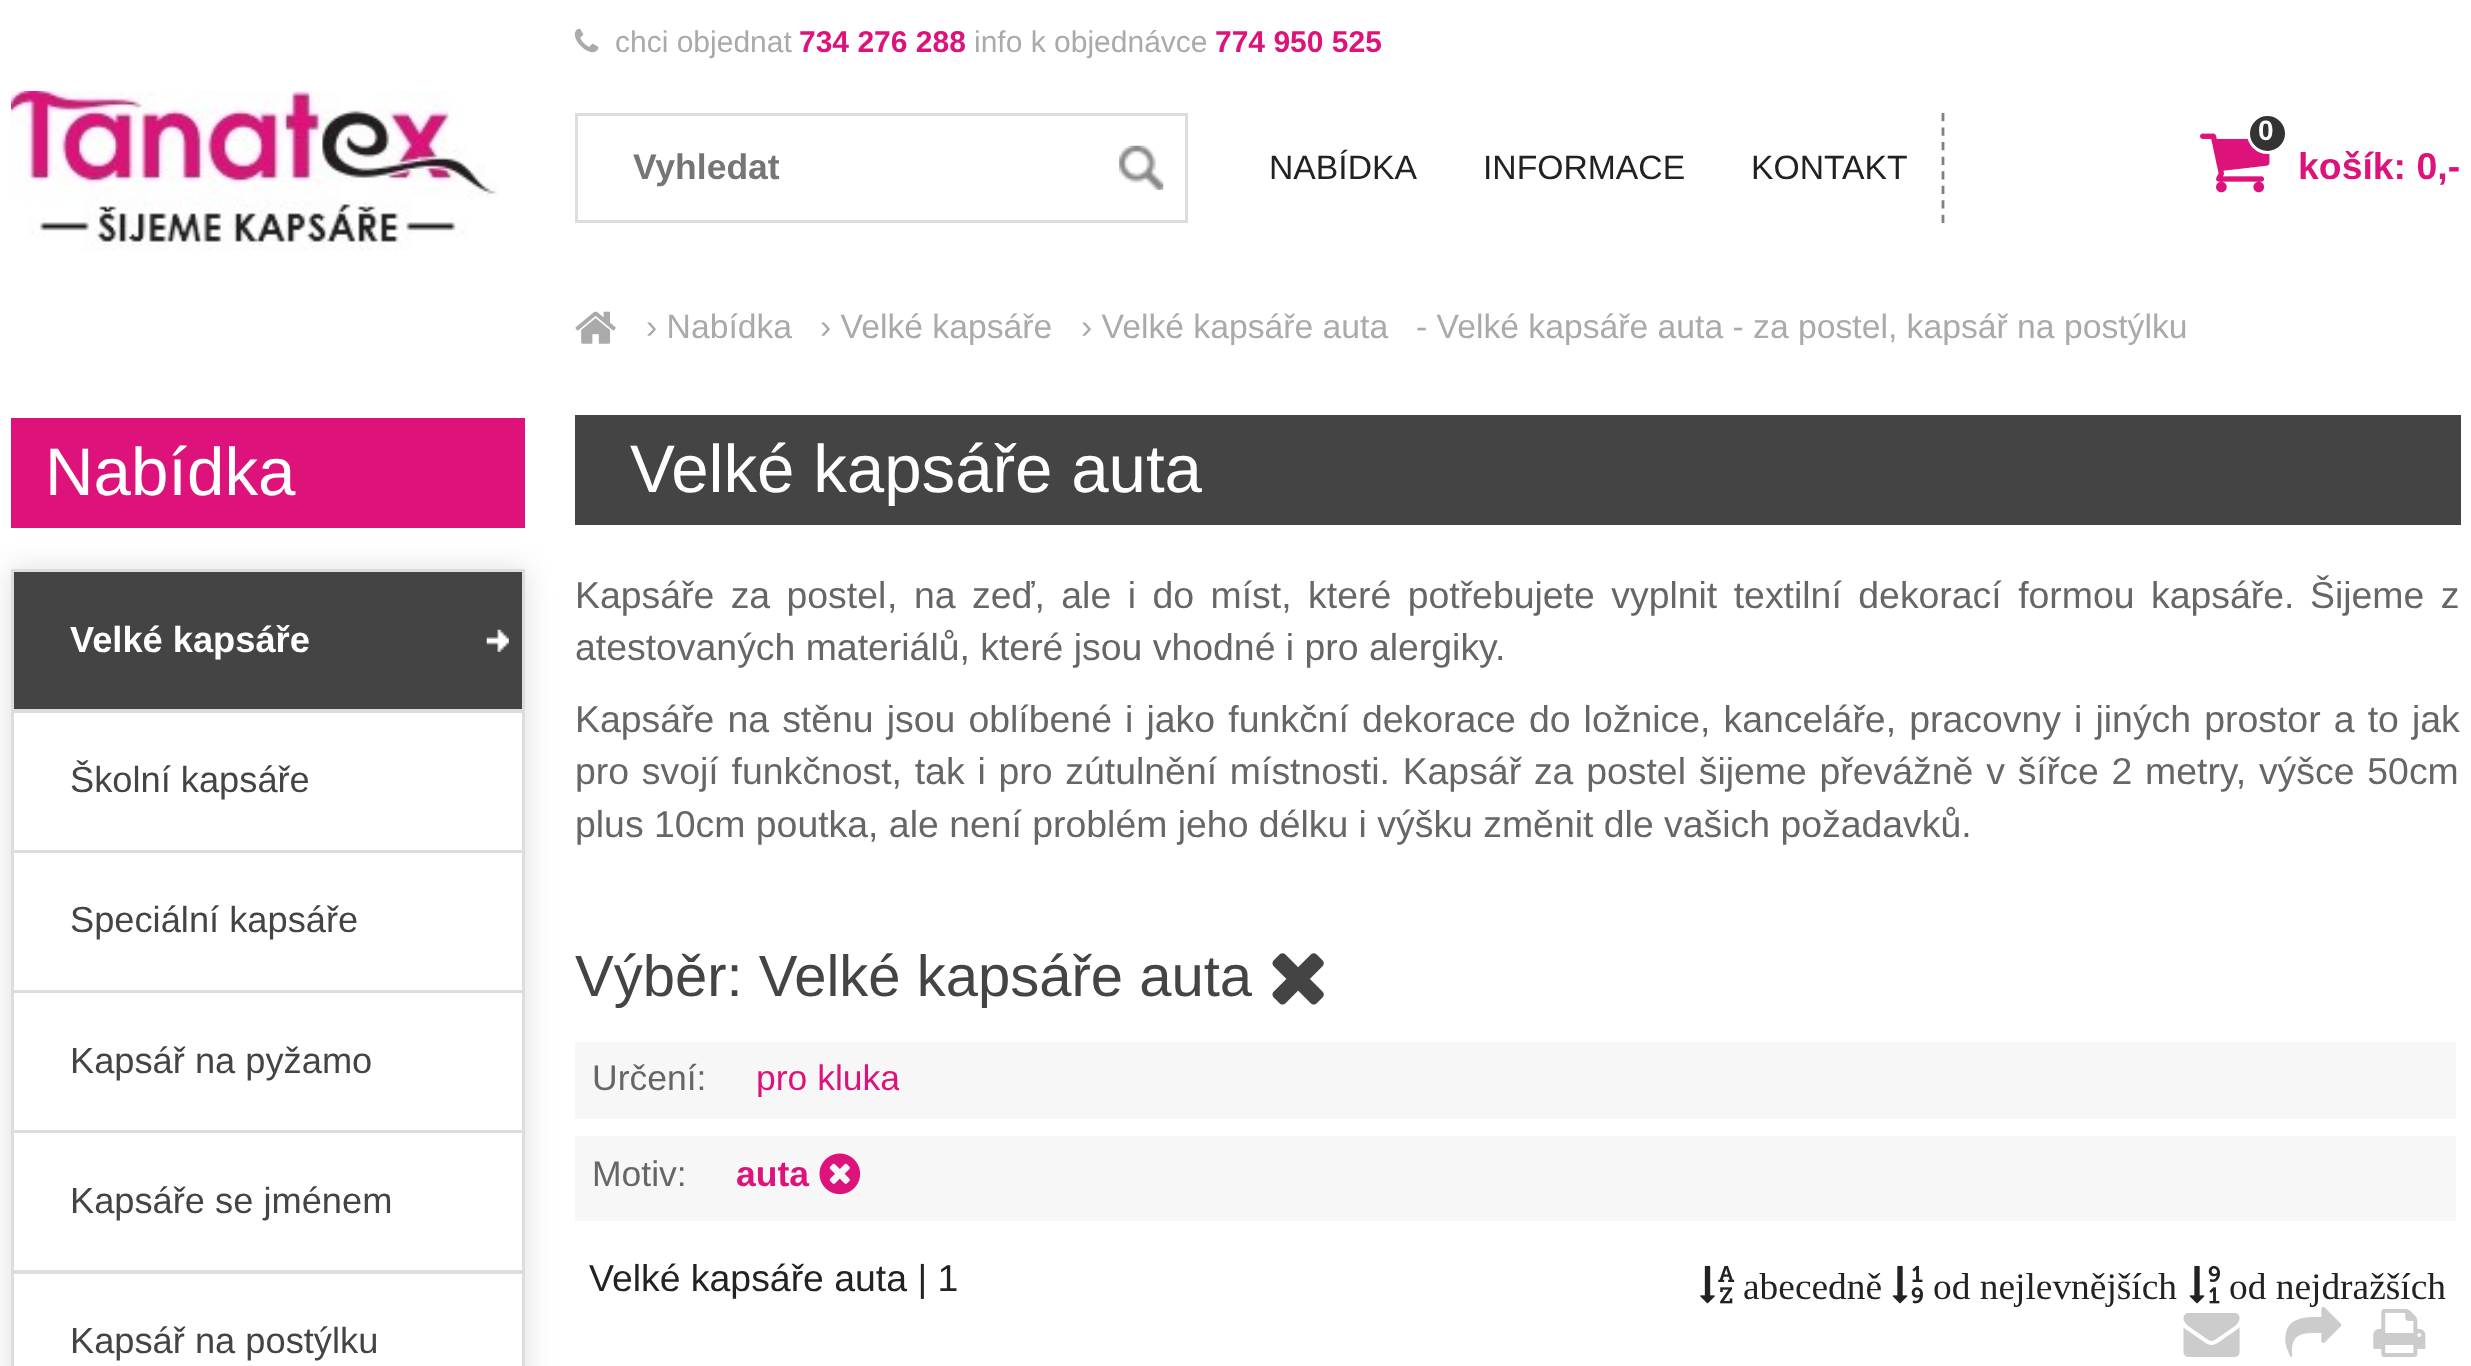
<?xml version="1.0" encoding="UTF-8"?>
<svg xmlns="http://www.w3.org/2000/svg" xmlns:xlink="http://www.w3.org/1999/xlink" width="2471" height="1366">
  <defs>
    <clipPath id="clip1"><rect x="591" y="1056" width="308" height="41" /></clipPath>
  </defs>
  <rect width="100%" height="100%" fill="#ffffff" />
  <image x="574" y="28" width="25" height="25" xlink:href="image1.png" />
  <image x="11" y="91" width="487" height="159" xlink:href="image2.png" />
  <image x="1119" y="145" width="45" height="45" xlink:href="image3.png" />
  <rect x="576.5" y="114.5" width="610" height="107" fill="none" stroke="#dddddd" stroke-width="3" />
  <path d="M 1943 113 v 110" fill="none" stroke="#808080" stroke-width="2.8" stroke-dasharray="8.25 6.3" />
  <image x="2200" y="133" width="70" height="60" xlink:href="image4.png" />
  <circle cx="2267.5" cy="133.5" r="19" fill="#333333" stroke="#ffffff" stroke-width="3" />
  <rect x="11" y="418" width="514" height="110" fill="#dd137b" />
  <rect x="11" y="569" width="514" height="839" fill="#dddddd" filter="blur(14px)" />
  <rect x="14" y="572" width="508" height="137" fill="#444444" />
  <image x="486" y="629" width="23" height="23" xlink:href="image5.png" />
  <rect x="12.5" y="570.5" width="511" height="140" fill="none" stroke="#dddddd" stroke-width="3" />
  <rect x="12.5" y="711.5" width="511" height="140" fill="#ffffff" stroke="#dddddd" stroke-width="3" />
  <rect x="12.5" y="851.5" width="511" height="140" fill="#ffffff" stroke="#dddddd" stroke-width="3" />
  <rect x="12.5" y="991.5" width="511" height="140" fill="#ffffff" stroke="#dddddd" stroke-width="3" />
  <rect x="12.5" y="1131.5" width="511" height="140" fill="#ffffff" stroke="#dddddd" stroke-width="3" />
  <rect x="12.5" y="1272.5" width="511" height="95" fill="#ffffff" stroke="#dddddd" stroke-width="3" />
  <image x="575" y="311" width="41" height="33" xlink:href="image6.png" />
  <rect x="575" y="415" width="1886" height="110" fill="#444444" />
  <image x="1272" y="953" width="52" height="52" xlink:href="image7.png" />
  <rect x="575" y="1042" width="1881" height="77" fill="#f7f7f7" />
  <rect x="575" y="1136" width="1881" height="85" fill="#f7f7f7" />
  <image x="819" y="1153" width="42" height="42" xlink:href="image8.png" />
  <image x="1700" y="1265" width="35" height="39" xlink:href="image9.png" />
  <image x="1892" y="1265" width="31" height="39" xlink:href="image10.png" />
  <image x="2189" y="1265" width="31" height="39" xlink:href="image11.png" />
  <image x="2183" y="1313" width="57" height="44" xlink:href="image12.png" />
  <image x="2285" y="1307" width="57" height="50" xlink:href="image13.png" />
  <image x="2373" y="1309" width="53" height="48" xlink:href="image14.png" />
  <text x="615" y="52" style="font-family: Liberation Sans; font-size: 30px; fill: #aaaaaa">chci objednat</text>
  <text x="799" y="52" style="font-family: Liberation Sans; font-size: 30px; font-weight: bold; fill: #dd137b">734 276 288</text>
  <text x="974" y="52" style="font-family: Liberation Sans; font-size: 30px; fill: #aaaaaa">info k objednávce</text>
  <text x="1215" y="52" style="font-family: Liberation Sans; font-size: 30px; font-weight: bold; fill: #dd137b">774 950 525</text>
  <text x="633" y="179" style="font-family: Liberation Sans; font-size: 35.5px; font-weight: bold; fill: #757575">Vyhledat</text>
  <text x="1269" y="179" style="font-family: Liberation Sans; font-size: 33.7px; fill: #222222">NABÍDKA</text>
  <text x="1483" y="179" style="font-family: Liberation Sans; font-size: 33.7px; fill: #222222">INFORMACE</text>
  <text x="1751" y="179" style="font-family: Liberation Sans; font-size: 33.7px; fill: #222222">KONTAKT</text>
  <text x="2258" y="140" style="font-family: Liberation Sans; font-size: 28px; font-weight: bold; fill: #ffffff">0</text>
  <text x="2298" y="179" style="font-family: Liberation Sans; font-size: 37.4px; font-weight: bold; fill: #dd137b">košík: 0,-</text>
  <text x="45" y="495" style="font-family: Liberation Sans; font-size: 67.25px; fill: #ffffff">Nabídka</text>
  <text x="70" y="652" style="font-family: Liberation Sans; font-size: 36.25px; font-weight: bold; fill: #ffffff">Velké kapsáře</text>
  <text x="70" y="792" style="font-family: Liberation Sans; font-size: 36.25px; fill: #444444">Školní kapsáře</text>
  <text x="70" y="932" style="font-family: Liberation Sans; font-size: 36.25px; fill: #444444">Speciální kapsáře</text>
  <text x="70" y="1073" style="font-family: Liberation Sans; font-size: 36.25px; fill: #444444">Kapsář na pyžamo</text>
  <text x="70" y="1213" style="font-family: Liberation Sans; font-size: 36.25px; fill: #444444">Kapsáře se jménem</text>
  <text x="70" y="1353" style="font-family: Liberation Sans; font-size: 36.25px; fill: #444444">Kapsář na postýlku</text>
  <text x="646" y="338" style="font-family: Liberation Sans; font-size: 33.7px; fill: #aaaaaa">› Nabídka</text>
  <text x="820" y="338" style="font-family: Liberation Sans; font-size: 33.7px; fill: #aaaaaa">› Velké kapsáře</text>
  <text x="1081" y="338" style="font-family: Liberation Sans; font-size: 33.7px; fill: #aaaaaa">› Velké kapsáře auta</text>
  <text x="1416" y="338" style="font-family: Liberation Sans; font-size: 33.7px; fill: #aaaaaa">- Velké kapsáře auta - za postel, kapsář na postýlku</text>
  <text x="630" y="492" style="font-family: Liberation Sans; font-size: 67.25px; fill: #ffffff">Velké kapsáře auta</text>
  <text x="575" y="608" word-spacing="6" style="font-family: Liberation Sans; font-size: 37.4px; fill: #666666">Kapsáře za postel</text>
  <text x="887" y="608" word-spacing="6.1" style="font-family: Liberation Sans; font-size: 37.4px; fill: #666666">, na zeď, ale i do míst, které potřebujete vyplnit textilní dekorací formou kapsáře.</text>
  <text x="2310" y="608" word-spacing="6" style="font-family: Liberation Sans; font-size: 37.4px; fill: #666666">Šijeme z</text>
  <text x="575" y="660" style="font-family: Liberation Sans; font-size: 37.4px; fill: #666666">atestovaných materiálů, které jsou vhodné i pro alergiky.</text>
  <text x="575" y="732" word-spacing="2.75" style="font-family: Liberation Sans; font-size: 37.4px; fill: #666666">Kapsáře na stěnu jsou oblíbené i jako funkční dekorace do ložnice, kanceláře, pracovny i jiných prostor a to jak</text>
  <text x="575" y="784" word-spacing="2.4" style="font-family: Liberation Sans; font-size: 37.4px; fill: #666666">pro svojí funkčnost, tak i pro zútulnění místnosti. Kapsář za postel šijeme převážně v šířce 2 metry, výšce 50cm</text>
  <text x="575" y="837" style="font-family: Liberation Sans; font-size: 37.4px; fill: #666666">plus 10cm poutka, ale není problém jeho délku i výšku změnit dle vašich požadavků.</text>
  <text x="575" y="996" style="font-family: Liberation Sans; font-size: 58px; fill: #444444">Výběr: Velké kapsáře auta</text>
  <text x="592" y="1090" style="font-family: Liberation Sans; font-size: 35.5px; fill: #666666">Určení:</text>
  <g clip-path="url(#clip1)">
    <text x="756" y="1090" style="font-family: Liberation Sans; font-size: 35.5px; fill: #dd137b">pro kluka</text>
  </g>
  <text x="592" y="1186" style="font-family: Liberation Sans; font-size: 35.5px; fill: #666666">Motiv:</text>
  <text x="736" y="1186" style="font-family: Liberation Sans; font-size: 35.5px; font-weight: bold; fill: #dd137b">auta</text>
  <text x="589" y="1291" style="font-family: Liberation Sans; font-size: 37.4px; fill: #222222">Velké kapsáře auta | 1</text>
  <text x="1743" y="1299" style="font-family: Liberation Serif; font-size: 37.4px; fill: #222222">abecedně</text>
  <text x="1933" y="1299" style="font-family: Liberation Serif; font-size: 37.4px; fill: #222222">od nejlevnějších</text>
  <text x="2229" y="1299" style="font-family: Liberation Serif; font-size: 37.4px; fill: #222222">od nejdražších</text>
</svg>
